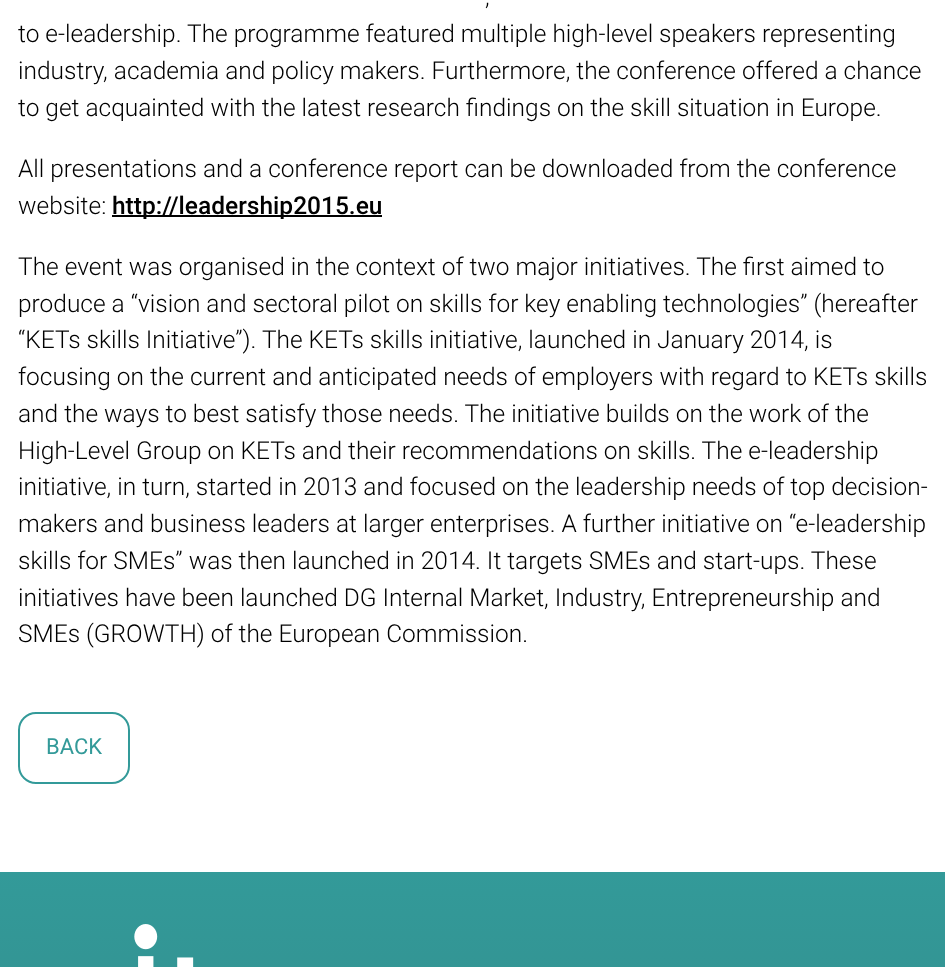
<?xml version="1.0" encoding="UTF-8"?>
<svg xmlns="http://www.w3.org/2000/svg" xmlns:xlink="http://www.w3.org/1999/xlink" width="945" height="967">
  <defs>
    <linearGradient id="g1" gradientUnits="userSpaceOnUse" x1="472" y1="871" x2="473" y2="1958"><stop offset="0" stop-color="#339a99" /><stop offset="1" stop-color="#336667" /></linearGradient>
  </defs>
  <rect width="100%" height="100%" fill="#ffffff" />
  <rect x="112" y="215" width="270" height="2" fill="#000000" />
  <rect x="19" y="713" width="110" height="70" rx="17" fill="none" stroke="#339a99" stroke-width="2" />
  <rect y="872" width="945" height="95" fill="url(#g1)" />
  <image x="134" y="924" width="60" height="43" xlink:href="image1.png" />
  <text x="485" y="5" style="font-family: Roboto; font-size: 24.5px; font-weight: 300; fill: #000000">,</text>
  <text x="18" y="42" style="font-family: Roboto; font-size: 24.5px; font-weight: 300; fill: #000000">to e-leadership. The programme featured multiple high-level speakers representing</text>
  <text x="18" y="79" style="font-family: Roboto; font-size: 24.5px; font-weight: 300; fill: #000000">industry, academia and policy makers. Furthermore, the conference offered a chance</text>
  <text x="18" y="116" style="font-family: Roboto; font-size: 24.5px; font-weight: 300; fill: #000000">to get acquainted with the latest research findings on the skill situation in Europe.</text>
  <text x="18" y="177" style="font-family: Roboto; font-size: 24.5px; font-weight: 300; fill: #000000">All presentations and a conference report can be downloaded from the conference</text>
  <text x="18" y="214" style="font-family: Roboto; font-size: 24.5px; font-weight: 300; fill: #000000">website:</text>
  <text x="112" y="214" style="font-family: Roboto; font-size: 24.5px; font-weight: 500; fill: #000000">http://leadership2015.eu</text>
  <text x="18" y="275" style="font-family: Roboto; font-size: 24.5px; font-weight: 300; fill: #000000">The event was organised in the context of two major initiatives. The first aimed to</text>
  <text x="18" y="312" style="font-family: Roboto; font-size: 24.5px; font-weight: 300; fill: #000000">produce a “vision and sectoral pilot on skills for key enabling technologies” (hereafter</text>
  <text x="18" y="348" style="font-family: Roboto; font-size: 24.5px; font-weight: 300; fill: #000000">“KETs skills Initiative”). The KETs skills initiative, launched in January 2014, is</text>
  <text x="18" y="385" style="font-family: Roboto; font-size: 24.5px; font-weight: 300; fill: #000000">focusing on the current and anticipated needs of employers with regard to KETs skills</text>
  <text x="18" y="422" style="font-family: Roboto; font-size: 24.5px; font-weight: 300; fill: #000000">and the ways to best satisfy those needs. The initiative builds on the work of the</text>
  <text x="18" y="459" style="font-family: Roboto; font-size: 24.5px; font-weight: 300; fill: #000000">High-Level Group on KETs and their recommendations on skills. The e-leadership</text>
  <text x="18" y="495" style="font-family: Roboto; font-size: 24.5px; font-weight: 300; fill: #000000">initiative, in turn, started in 2013 and focused on the leadership needs of top decision-</text>
  <text x="18" y="532" style="font-family: Roboto; font-size: 24.5px; font-weight: 300; fill: #000000">makers and business leaders at larger enterprises. A further initiative on “e-leadership</text>
  <text x="18" y="569" style="font-family: Roboto; font-size: 24.5px; font-weight: 300; fill: #000000">skills for SMEs” was then launched in 2014. It targets SMEs and start-ups. These</text>
  <text x="18" y="606" style="font-family: Roboto; font-size: 24.5px; font-weight: 300; fill: #000000">initiatives have been launched DG Internal Market, Industry, Entrepreneurship and</text>
  <text x="18" y="642" style="font-family: Roboto; font-size: 24.5px; font-weight: 300; fill: #000000">SMEs (GROWTH) of the European Commission.</text>
  <text x="46" y="754" style="font-family: Roboto; font-size: 22px; fill: #339a99">BACK</text>
</svg>
